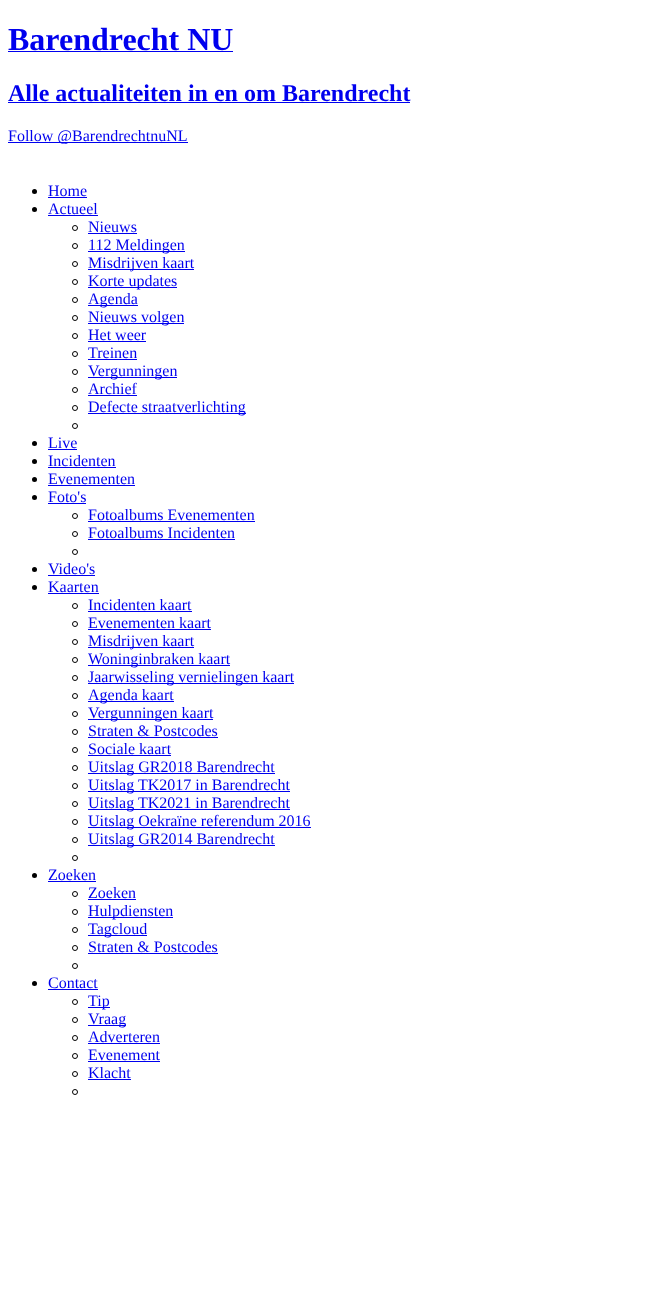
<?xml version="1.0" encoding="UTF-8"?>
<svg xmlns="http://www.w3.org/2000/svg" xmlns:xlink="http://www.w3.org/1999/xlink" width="653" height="1306">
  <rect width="100%" height="100%" fill="#ffffff" />
  <rect x="8" y="51" width="225" height="1" fill="#0000ee" />
  <rect x="8" y="102" width="402" height="1" fill="#0000ee" />
  <rect x="8" y="142" width="180" height="1" fill="#0000ee" />
  <circle cx="34.5" cy="191.5" r="2.5" fill="#000000" />
  <rect x="48" y="197" width="39" height="1" fill="#0000ee" />
  <circle cx="34.5" cy="209.5" r="2.5" fill="#000000" />
  <rect x="48" y="215" width="50" height="1" fill="#0000ee" />
  <circle cx="75" cy="228" r="2.5" fill="none" stroke="#000000" />
  <rect x="88" y="233" width="49" height="1" fill="#0000ee" />
  <circle cx="75" cy="246" r="2.5" fill="none" stroke="#000000" />
  <rect x="88" y="251" width="97" height="1" fill="#0000ee" />
  <circle cx="75" cy="264" r="2.5" fill="none" stroke="#000000" />
  <rect x="88" y="269" width="106" height="1" fill="#0000ee" />
  <circle cx="75" cy="282" r="2.5" fill="none" stroke="#000000" />
  <rect x="88" y="287" width="89" height="1" fill="#0000ee" />
  <circle cx="75" cy="300" r="2.5" fill="none" stroke="#000000" />
  <rect x="88" y="305" width="50" height="1" fill="#0000ee" />
  <circle cx="75" cy="318" r="2.5" fill="none" stroke="#000000" />
  <rect x="88" y="323" width="96" height="1" fill="#0000ee" />
  <circle cx="75" cy="336" r="2.5" fill="none" stroke="#000000" />
  <rect x="88" y="341" width="58" height="1" fill="#0000ee" />
  <circle cx="75" cy="354" r="2.5" fill="none" stroke="#000000" />
  <rect x="88" y="359" width="49" height="1" fill="#0000ee" />
  <circle cx="75" cy="372" r="2.5" fill="none" stroke="#000000" />
  <rect x="88" y="377" width="89" height="1" fill="#0000ee" />
  <circle cx="75" cy="390" r="2.5" fill="none" stroke="#000000" />
  <rect x="88" y="395" width="49" height="1" fill="#0000ee" />
  <circle cx="75" cy="408" r="2.5" fill="none" stroke="#000000" />
  <rect x="88" y="413" width="158" height="1" fill="#0000ee" />
  <circle cx="75" cy="426" r="2.5" fill="none" stroke="#000000" />
  <circle cx="34.5" cy="443.5" r="2.5" fill="#000000" />
  <rect x="48" y="449" width="29" height="1" fill="#0000ee" />
  <circle cx="34.5" cy="461.5" r="2.5" fill="#000000" />
  <rect x="48" y="467" width="68" height="1" fill="#0000ee" />
  <circle cx="34.5" cy="479.5" r="2.5" fill="#000000" />
  <rect x="48" y="485" width="87" height="1" fill="#0000ee" />
  <circle cx="34.5" cy="497.5" r="2.5" fill="#000000" />
  <rect x="48" y="503" width="38" height="1" fill="#0000ee" />
  <circle cx="75" cy="516" r="2.5" fill="none" stroke="#000000" />
  <rect x="88" y="521" width="167" height="1" fill="#0000ee" />
  <circle cx="75" cy="534" r="2.5" fill="none" stroke="#000000" />
  <rect x="88" y="539" width="147" height="1" fill="#0000ee" />
  <circle cx="75" cy="552" r="2.5" fill="none" stroke="#000000" />
  <circle cx="34.5" cy="569.5" r="2.5" fill="#000000" />
  <rect x="48" y="575" width="47" height="1" fill="#0000ee" />
  <circle cx="34.5" cy="587.5" r="2.5" fill="#000000" />
  <rect x="48" y="593" width="51" height="1" fill="#0000ee" />
  <circle cx="75" cy="606" r="2.5" fill="none" stroke="#000000" />
  <rect x="88" y="611" width="104" height="1" fill="#0000ee" />
  <circle cx="75" cy="624" r="2.5" fill="none" stroke="#000000" />
  <rect x="88" y="629" width="123" height="1" fill="#0000ee" />
  <circle cx="75" cy="642" r="2.5" fill="none" stroke="#000000" />
  <rect x="88" y="647" width="106" height="1" fill="#0000ee" />
  <circle cx="75" cy="660" r="2.5" fill="none" stroke="#000000" />
  <rect x="88" y="665" width="142" height="1" fill="#0000ee" />
  <circle cx="75" cy="678" r="2.5" fill="none" stroke="#000000" />
  <rect x="88" y="683" width="206" height="1" fill="#0000ee" />
  <circle cx="75" cy="696" r="2.5" fill="none" stroke="#000000" />
  <rect x="88" y="701" width="86" height="1" fill="#0000ee" />
  <circle cx="75" cy="714" r="2.5" fill="none" stroke="#000000" />
  <rect x="88" y="719" width="125" height="1" fill="#0000ee" />
  <circle cx="75" cy="732" r="2.5" fill="none" stroke="#000000" />
  <rect x="88" y="737" width="130" height="1" fill="#0000ee" />
  <circle cx="75" cy="750" r="2.5" fill="none" stroke="#000000" />
  <rect x="88" y="755" width="83" height="1" fill="#0000ee" />
  <circle cx="75" cy="768" r="2.5" fill="none" stroke="#000000" />
  <rect x="88" y="773" width="187" height="1" fill="#0000ee" />
  <circle cx="75" cy="786" r="2.5" fill="none" stroke="#000000" />
  <rect x="88" y="791" width="202" height="1" fill="#0000ee" />
  <circle cx="75" cy="804" r="2.5" fill="none" stroke="#000000" />
  <rect x="88" y="809" width="202" height="1" fill="#0000ee" />
  <circle cx="75" cy="822" r="2.5" fill="none" stroke="#000000" />
  <rect x="88" y="827" width="223" height="1" fill="#0000ee" />
  <circle cx="75" cy="840" r="2.5" fill="none" stroke="#000000" />
  <rect x="88" y="845" width="187" height="1" fill="#0000ee" />
  <circle cx="75" cy="858" r="2.5" fill="none" stroke="#000000" />
  <circle cx="34.5" cy="875.5" r="2.5" fill="#000000" />
  <rect x="48" y="881" width="48" height="1" fill="#0000ee" />
  <circle cx="75" cy="894" r="2.5" fill="none" stroke="#000000" />
  <rect x="88" y="899" width="48" height="1" fill="#0000ee" />
  <circle cx="75" cy="912" r="2.5" fill="none" stroke="#000000" />
  <rect x="88" y="917" width="85" height="1" fill="#0000ee" />
  <circle cx="75" cy="930" r="2.5" fill="none" stroke="#000000" />
  <rect x="88" y="935" width="59" height="1" fill="#0000ee" />
  <circle cx="75" cy="948" r="2.5" fill="none" stroke="#000000" />
  <rect x="88" y="953" width="130" height="1" fill="#0000ee" />
  <circle cx="75" cy="966" r="2.5" fill="none" stroke="#000000" />
  <circle cx="34.5" cy="983.5" r="2.5" fill="#000000" />
  <rect x="48" y="989" width="50" height="1" fill="#0000ee" />
  <circle cx="75" cy="1002" r="2.5" fill="none" stroke="#000000" />
  <rect x="88" y="1007" width="22" height="1" fill="#0000ee" />
  <circle cx="75" cy="1020" r="2.5" fill="none" stroke="#000000" />
  <rect x="88" y="1025" width="38" height="1" fill="#0000ee" />
  <circle cx="75" cy="1038" r="2.5" fill="none" stroke="#000000" />
  <rect x="88" y="1043" width="72" height="1" fill="#0000ee" />
  <circle cx="75" cy="1056" r="2.5" fill="none" stroke="#000000" />
  <rect x="88" y="1061" width="72" height="1" fill="#0000ee" />
  <circle cx="75" cy="1074" r="2.5" fill="none" stroke="#000000" />
  <rect x="88" y="1079" width="43" height="1" fill="#0000ee" />
  <circle cx="75" cy="1092" r="2.5" fill="none" stroke="#000000" />
  <text x="8" y="50" style="font-family: Liberation Serif; font-size: 32px; font-weight: bold; fill: #0000ee">Barendrecht NU</text>
  <text x="8" y="101" style="font-family: Liberation Serif; font-size: 24px; font-weight: bold; fill: #0000ee">Alle actualiteiten in en om Barendrecht</text>
  <text x="8" y="141" style="font-family: Liberation Serif; font-size: 16px; fill: #0000ee">Follow @BarendrechtnuNL</text>
  <text x="48" y="196" style="font-family: Liberation Serif; font-size: 16px; fill: #0000ee">Home</text>
  <text x="48" y="214" style="font-family: Liberation Serif; font-size: 16px; fill: #0000ee">Actueel</text>
  <text x="88" y="232" style="font-family: Liberation Serif; font-size: 16px; fill: #0000ee">Nieuws</text>
  <text x="88" y="250" style="font-family: Liberation Serif; font-size: 16px; fill: #0000ee">112 Meldingen</text>
  <text x="88" y="268" style="font-family: Liberation Serif; font-size: 16px; fill: #0000ee">Misdrijven kaart</text>
  <text x="88" y="286" style="font-family: Liberation Serif; font-size: 16px; fill: #0000ee">Korte updates</text>
  <text x="88" y="304" style="font-family: Liberation Serif; font-size: 16px; fill: #0000ee">Agenda</text>
  <text x="88" y="322" style="font-family: Liberation Serif; font-size: 16px; fill: #0000ee">Nieuws volgen</text>
  <text x="88" y="340" style="font-family: Liberation Serif; font-size: 16px; fill: #0000ee">Het weer</text>
  <text x="88" y="358" style="font-family: Liberation Serif; font-size: 16px; fill: #0000ee">Treinen</text>
  <text x="88" y="376" style="font-family: Liberation Serif; font-size: 16px; fill: #0000ee">Vergunningen</text>
  <text x="88" y="394" style="font-family: Liberation Serif; font-size: 16px; fill: #0000ee">Archief</text>
  <text x="88" y="412" style="font-family: Liberation Serif; font-size: 16px; fill: #0000ee">Defecte straatverlichting</text>
  <text x="48" y="448" style="font-family: Liberation Serif; font-size: 16px; fill: #0000ee">Live</text>
  <text x="48" y="466" style="font-family: Liberation Serif; font-size: 16px; fill: #0000ee">Incidenten</text>
  <text x="48" y="484" style="font-family: Liberation Serif; font-size: 16px; fill: #0000ee">Evenementen</text>
  <text x="48" y="502" style="font-family: Liberation Serif; font-size: 16px; fill: #0000ee">Foto's</text>
  <text x="88" y="520" style="font-family: Liberation Serif; font-size: 16px; fill: #0000ee">Fotoalbums Evenementen</text>
  <text x="88" y="538" style="font-family: Liberation Serif; font-size: 16px; fill: #0000ee">Fotoalbums Incidenten</text>
  <text x="48" y="574" style="font-family: Liberation Serif; font-size: 16px; fill: #0000ee">Video's</text>
  <text x="48" y="592" style="font-family: Liberation Serif; font-size: 16px; fill: #0000ee">Kaarten</text>
  <text x="88" y="610" style="font-family: Liberation Serif; font-size: 16px; fill: #0000ee">Incidenten kaart</text>
  <text x="88" y="628" style="font-family: Liberation Serif; font-size: 16px; fill: #0000ee">Evenementen kaart</text>
  <text x="88" y="646" style="font-family: Liberation Serif; font-size: 16px; fill: #0000ee">Misdrijven kaart</text>
  <text x="88" y="664" style="font-family: Liberation Serif; font-size: 16px; fill: #0000ee">Woninginbraken kaart</text>
  <text x="88" y="682" style="font-family: Liberation Serif; font-size: 16px; fill: #0000ee">Jaarwisseling vernielingen kaart</text>
  <text x="88" y="700" style="font-family: Liberation Serif; font-size: 16px; fill: #0000ee">Agenda kaart</text>
  <text x="88" y="718" style="font-family: Liberation Serif; font-size: 16px; fill: #0000ee">Vergunningen kaart</text>
  <text x="88" y="736" style="font-family: Liberation Serif; font-size: 16px; fill: #0000ee">Straten &amp; Postcodes</text>
  <text x="88" y="754" style="font-family: Liberation Serif; font-size: 16px; fill: #0000ee">Sociale kaart</text>
  <text x="88" y="772" style="font-family: Liberation Serif; font-size: 16px; fill: #0000ee">Uitslag GR2018 Barendrecht</text>
  <text x="88" y="790" style="font-family: Liberation Serif; font-size: 16px; fill: #0000ee">Uitslag TK2017 in Barendrecht</text>
  <text x="88" y="808" style="font-family: Liberation Serif; font-size: 16px; fill: #0000ee">Uitslag TK2021 in Barendrecht</text>
  <text x="88" y="826" style="font-family: Liberation Serif; font-size: 16px; fill: #0000ee">Uitslag Oekraïne referendum 2016</text>
  <text x="88" y="844" style="font-family: Liberation Serif; font-size: 16px; fill: #0000ee">Uitslag GR2014 Barendrecht</text>
  <text x="48" y="880" style="font-family: Liberation Serif; font-size: 16px; fill: #0000ee">Zoeken</text>
  <text x="88" y="898" style="font-family: Liberation Serif; font-size: 16px; fill: #0000ee">Zoeken</text>
  <text x="88" y="916" style="font-family: Liberation Serif; font-size: 16px; fill: #0000ee">Hulpdiensten</text>
  <text x="88" y="934" style="font-family: Liberation Serif; font-size: 16px; fill: #0000ee">Tagcloud</text>
  <text x="88" y="952" style="font-family: Liberation Serif; font-size: 16px; fill: #0000ee">Straten &amp; Postcodes</text>
  <text x="48" y="988" style="font-family: Liberation Serif; font-size: 16px; fill: #0000ee">Contact</text>
  <text x="88" y="1006" style="font-family: Liberation Serif; font-size: 16px; fill: #0000ee">Tip</text>
  <text x="88" y="1024" style="font-family: Liberation Serif; font-size: 16px; fill: #0000ee">Vraag</text>
  <text x="88" y="1042" style="font-family: Liberation Serif; font-size: 16px; fill: #0000ee">Adverteren</text>
  <text x="88" y="1060" style="font-family: Liberation Serif; font-size: 16px; fill: #0000ee">Evenement</text>
  <text x="88" y="1078" style="font-family: Liberation Serif; font-size: 16px; fill: #0000ee">Klacht</text>
</svg>
